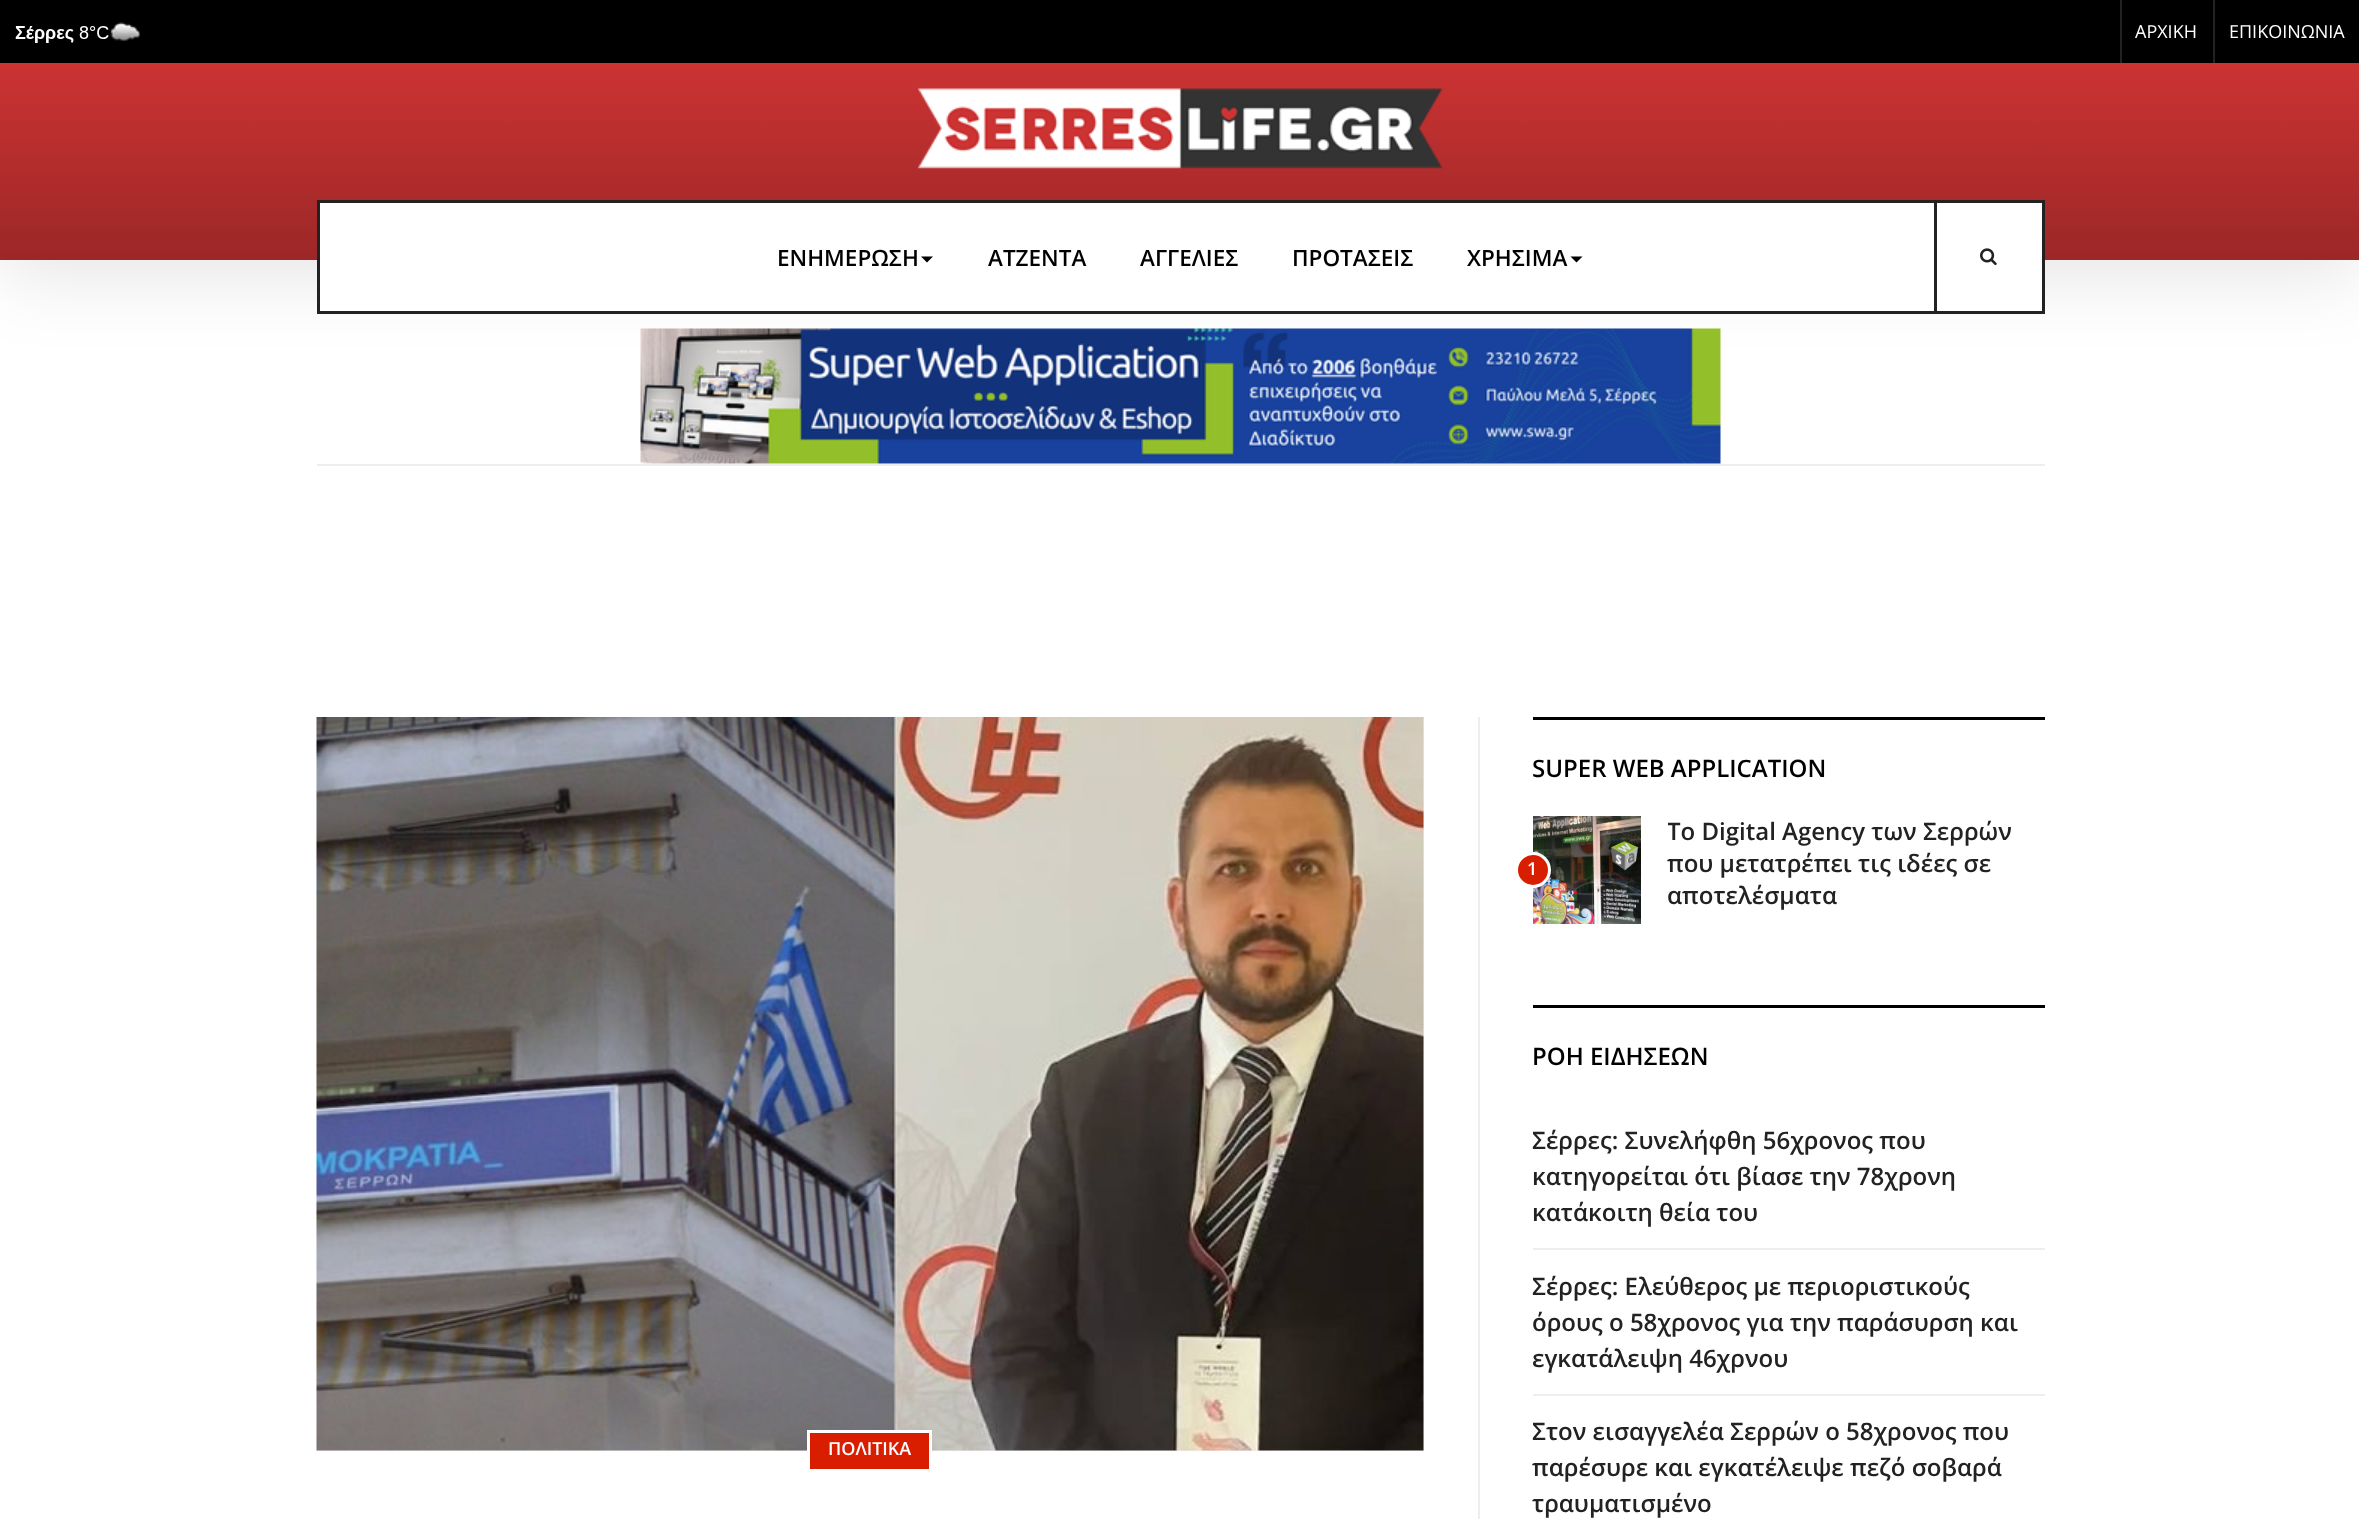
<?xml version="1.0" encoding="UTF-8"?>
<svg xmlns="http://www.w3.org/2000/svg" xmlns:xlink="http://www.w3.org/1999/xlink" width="2359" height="1519">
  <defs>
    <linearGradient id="g1" gradientUnits="userSpaceOnUse" x1="1180" y1="63" x2="1180" y2="260"><stop offset="0" stop-color="#cc3333" /><stop offset="1" stop-color="#9c2727" /></linearGradient>
    <clipPath id="clip1"><rect x="1668" y="816" width="377" height="122" /></clipPath>
  </defs>
  <rect width="100%" height="100%" fill="#ffffff" />
  <rect width="2359" height="63" fill="#000000" />
  <rect y="80" width="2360" height="196" fill="#000000" fill-opacity="0.1" filter="blur(38px)" />
  <rect y="63" width="2359" height="197" fill="url(#g1)" />
  <image x="918" y="87" width="525" height="82" xlink:href="image1.png" />
  <image x="15" y="22" width="125" height="21" xlink:href="image2.png" />
  <rect x="2120" width="2" height="63" fill="#222222" />
  <rect x="2213" width="2" height="63" fill="#222222" />
  <rect x="318.5" y="201.5" width="1725" height="111" fill="#ffffff" stroke="#222222" stroke-width="3" />
  <path d="M 921 256.5 h 12 l -6 6 z" fill="#000000" />
  <path d="M 1570.5 256.5 h 12 l -6 6 z" fill="#000000" />
  <rect x="1934" y="203" width="3" height="108" fill="#222222" />
  <image x="1980" y="248" width="17" height="18" xlink:href="image3.png" />
  <rect x="317" y="464" width="1728" height="2" fill="#eeeeee" />
  <image x="640" y="328" width="1081" height="136" xlink:href="image4.png" />
  <rect x="317" y="717" width="1107" height="734" fill="#eeeeee" />
  <image x="316" y="717" width="1108" height="734" xlink:href="image5.png" />
  <rect x="808.5" y="1431.5" width="122" height="39" fill="#d91e00" stroke="#ffffff" stroke-width="3" />
  <rect x="1478" y="717" width="2" height="802" fill="#eeeeee" />
  <rect x="1533" y="717" width="512" height="3" fill="#000000" />
  <image x="1533" y="816" width="108" height="108" xlink:href="image6.png" />
  <circle cx="1533" cy="870" r="16.5" fill="#d91e00" stroke="#ffffff" stroke-width="3" />
  <rect x="1533" y="1005" width="512" height="3" fill="#000000" />
  <rect x="1533" y="1248" width="512" height="2" fill="#eeeeee" />
  <rect x="1533" y="1394" width="512" height="2" fill="#eeeeee" />
  <text x="2135" y="38" style="font-family: Open Sans; font-size: 18px; fill: #ffffff">ΑΡΧΙΚΗ</text>
  <text x="2229" y="38" style="font-family: Open Sans; font-size: 18px; fill: #ffffff">ΕΠΙΚΟΙΝΩΝΙΑ</text>
  <text x="777" y="266" style="font-family: Open Sans; font-size: 22.5px; font-weight: 600; fill: #000000">ΕΝΗΜΕΡΩΣΗ</text>
  <text x="988" y="266" style="font-family: Open Sans; font-size: 22.5px; font-weight: 600; fill: #000000">ΑΤΖΕΝΤΑ</text>
  <text x="1140" y="266" style="font-family: Open Sans; font-size: 22.5px; font-weight: 600; fill: #000000">ΑΓΓΕΛΙΕΣ</text>
  <text x="1292" y="266" style="font-family: Open Sans; font-size: 22.5px; font-weight: 600; fill: #000000">ΠΡΟΤΑΣΕΙΣ</text>
  <text x="1467" y="266" style="font-family: Open Sans; font-size: 22.5px; font-weight: 600; fill: #000000">ΧΡΗΣΙΜΑ</text>
  <text x="828" y="1455" style="font-family: Open Sans; font-size: 18px; font-weight: 600; fill: #ffffff">ΠΟΛΙΤΙΚΑ</text>
  <text x="1532" y="777" style="font-family: Open Sans; font-size: 24px; font-weight: 600; fill: #000000">SUPER WEB APPLICATION</text>
  <text x="1527" y="875" style="font-family: Open Sans; font-size: 18px; font-weight: 600; fill: #ffffff">1</text>
  <g clip-path="url(#clip1)">
    <text x="1667" y="840" style="font-family: Open Sans; font-size: 24px; font-weight: 600; fill: #222222">Το Digital Agency των Σερρών</text>
  </g>
  <text x="1667" y="872" style="font-family: Open Sans; font-size: 24px; font-weight: 600; fill: #222222">που μετατρέπει τις ιδέες σε</text>
  <text x="1667" y="904" style="font-family: Open Sans; font-size: 24px; font-weight: 600; fill: #222222">αποτελέσματα</text>
  <text x="1532" y="1065" style="font-family: Open Sans; font-size: 24px; font-weight: 600; fill: #000000">ΡΟΗ ΕΙΔΗΣΕΩΝ</text>
  <text x="1532" y="1149" style="font-family: Open Sans; font-size: 24px; font-weight: 600; fill: #222222">Σέρρες: Συνελήφθη 56χρονος που</text>
  <text x="1532" y="1185" style="font-family: Open Sans; font-size: 24px; font-weight: 600; fill: #222222">κατηγορείται ότι βίασε την 78χρονη</text>
  <text x="1532" y="1221" style="font-family: Open Sans; font-size: 24px; font-weight: 600; fill: #222222">κατάκοιτη θεία του</text>
  <text x="1532" y="1295" style="font-family: Open Sans; font-size: 24px; font-weight: 600; fill: #222222">Σέρρες: Eλεύθερος με περιοριστικούς</text>
  <text x="1532" y="1331" style="font-family: Open Sans; font-size: 24px; font-weight: 600; fill: #222222">όρους ο 58χρονος για την παράσυρση και</text>
  <text x="1532" y="1367" style="font-family: Open Sans; font-size: 24px; font-weight: 600; fill: #222222">εγκατάλειψη 46χρνου</text>
  <text x="1532" y="1440" style="font-family: Open Sans; font-size: 24px; font-weight: 600; fill: #222222">Στον εισαγγελέα Σερρών ο 58χρονος που</text>
  <text x="1532" y="1476" style="font-family: Open Sans; font-size: 24px; font-weight: 600; fill: #222222">παρέσυρε και εγκατέλειψε πεζό σοβαρά</text>
  <text x="1532" y="1512" style="font-family: Open Sans; font-size: 24px; font-weight: 600; fill: #222222">τραυματισμένο</text>
</svg>
